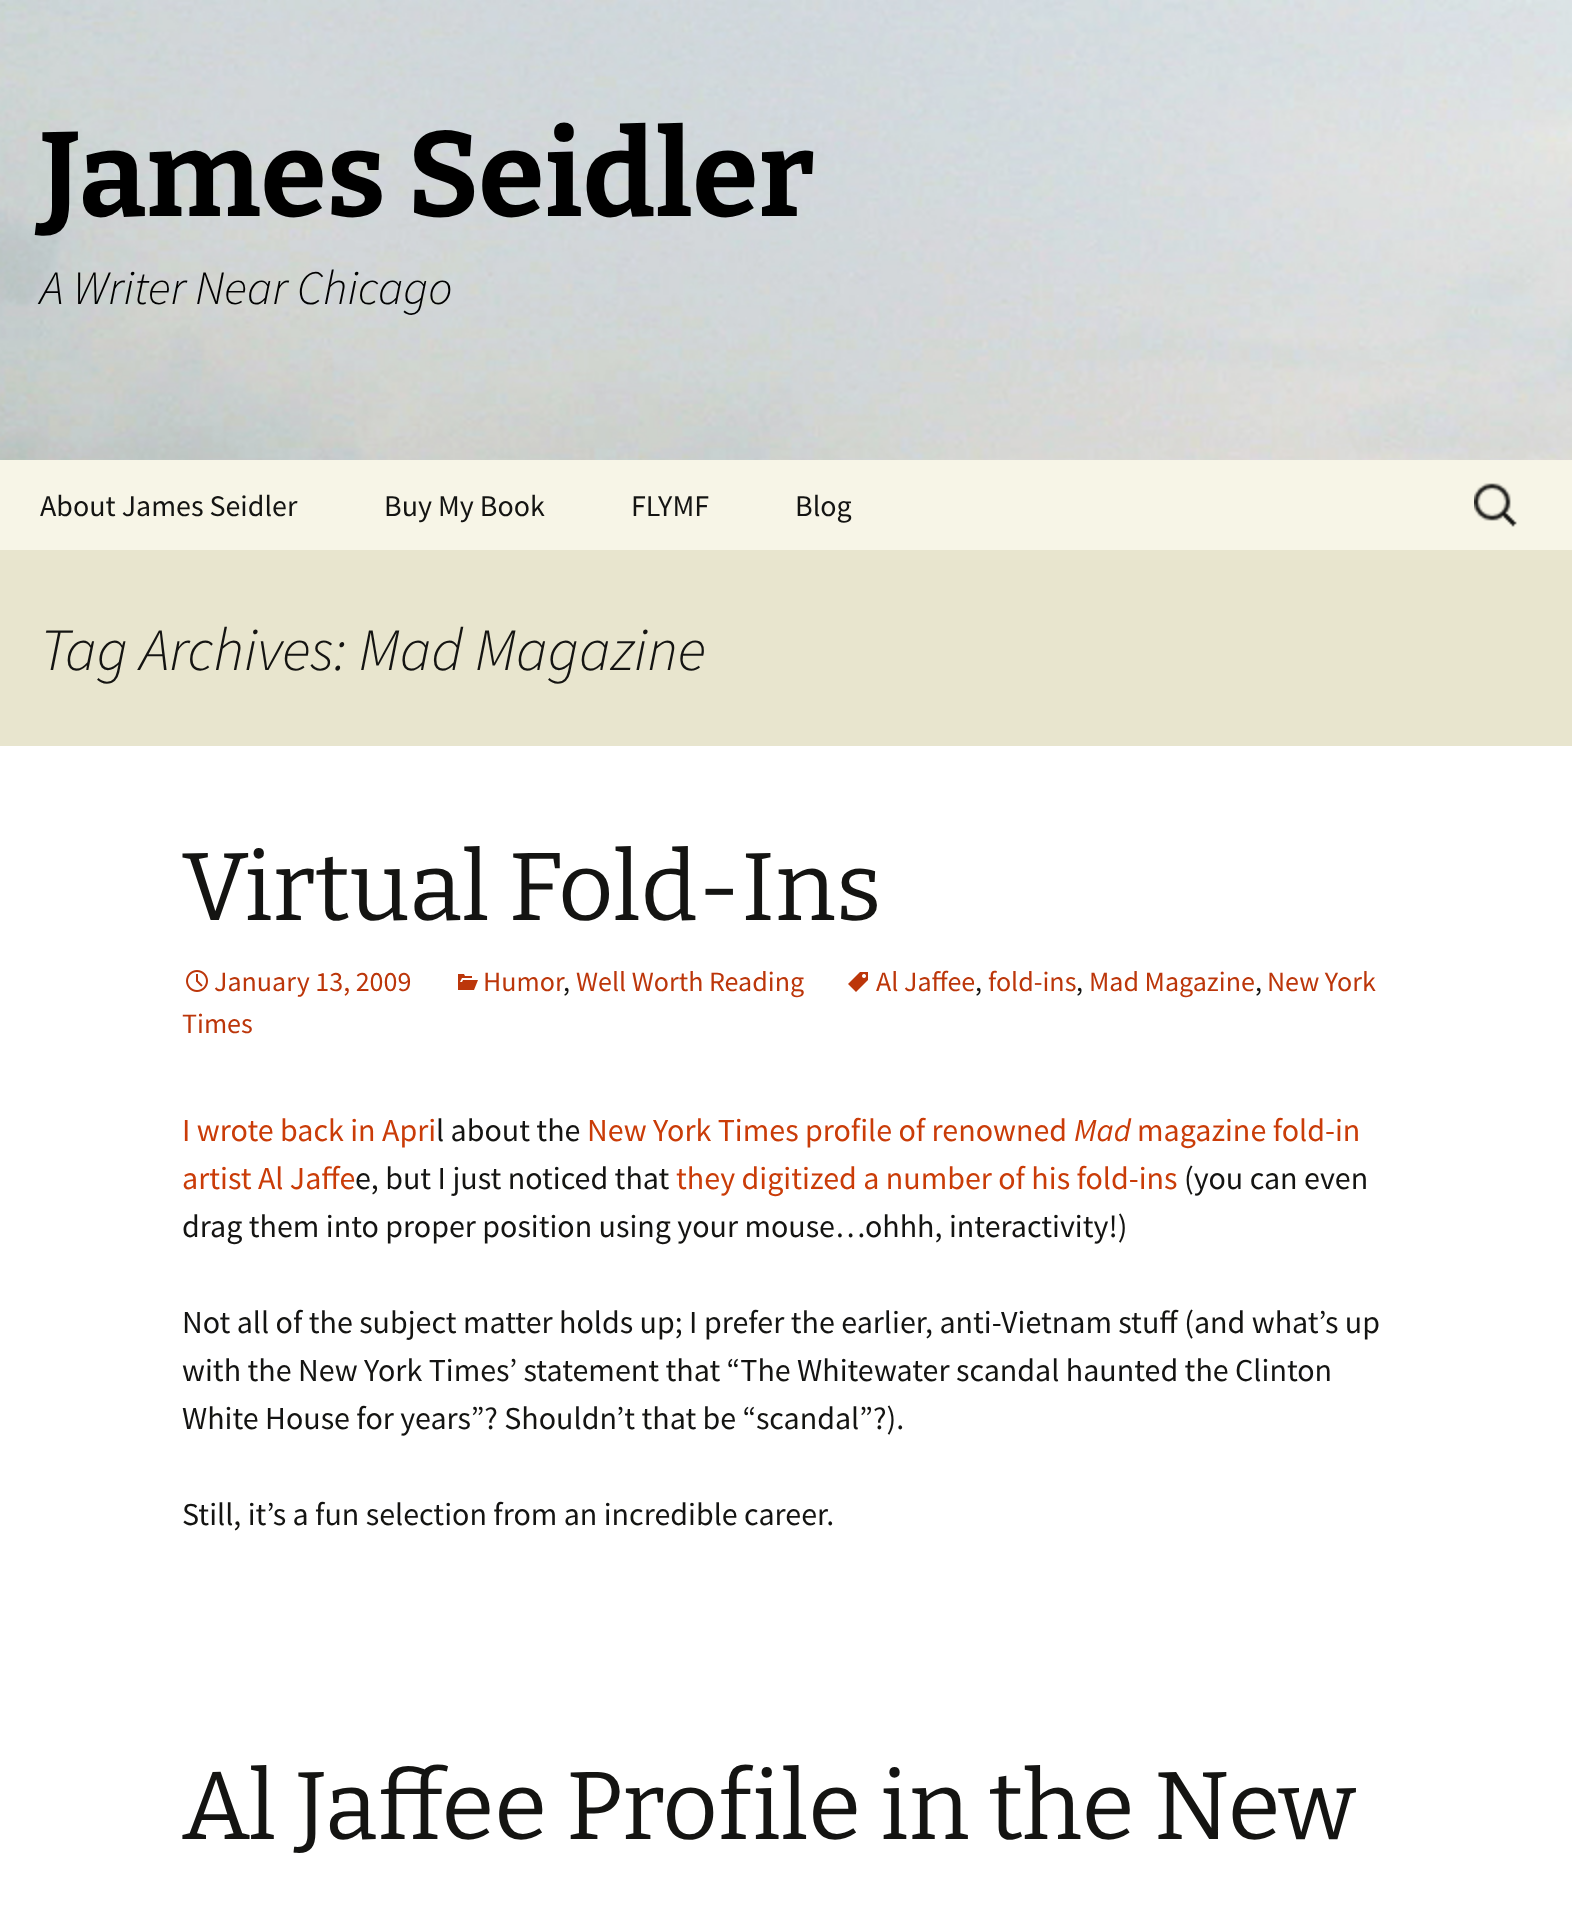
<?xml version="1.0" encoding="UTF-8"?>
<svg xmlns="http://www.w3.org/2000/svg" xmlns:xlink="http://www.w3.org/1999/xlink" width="1572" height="1925">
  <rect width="100%" height="100%" fill="#ffffff" />
  <image x="0" y="0" width="1572" height="460" xlink:href="image1.png" />
  <rect y="460" width="1572" height="90" fill="#f7f5e7" />
  <image x="1474" y="483" width="43" height="44" xlink:href="image2.png" />
  <rect y="550" width="1572" height="196" fill="#e8e5ce" />
  <image x="848" y="972" width="20" height="20" xlink:href="image3.png" />
  <image x="186" y="970" width="22" height="22" xlink:href="image4.png" />
  <image x="458" y="974" width="20" height="16" xlink:href="image5.png" />
  <text x="40" y="216" style="font-family: Bitter; font-size: 120px; font-weight: 100; fill: #000000">James Seidler</text>
  <text x="40" y="304" style="font-family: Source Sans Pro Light; font-size: 48px; font-weight: 300; font-style: italic; fill: #000000">A Writer Near Chicago</text>
  <text x="40" y="516" style="font-family: Source Sans Pro; font-size: 30px; fill: #141412">About James Seidler</text>
  <text x="384" y="516" style="font-family: Source Sans Pro; font-size: 30px; fill: #141412">Buy My Book</text>
  <text x="631" y="516" style="font-family: Source Sans Pro; font-size: 30px; fill: #141412">FLYMF</text>
  <text x="795" y="516" style="font-family: Source Sans Pro; font-size: 30px; fill: #141412">Blog</text>
  <text x="40" y="670" style="font-family: Source Sans Pro Light; font-size: 60px; font-weight: 300; font-style: italic; fill: #141412">Tag Archives: Mad Magazine</text>
  <text x="182" y="920" style="font-family: 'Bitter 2'; font-size: 96px; font-weight: 100; fill: #141412">Virtual Fold-Ins</text>
  <text x="876" y="991" style="font-family: Source Sans Pro; font-size: 28px; fill: #bc360a">Al Jaffee</text>
  <text x="975" y="991" style="font-family: Source Sans Pro; font-size: 28px; fill: #141412">,</text>
  <text x="988" y="991" style="font-family: Source Sans Pro; font-size: 28px; fill: #bc360a">fold-ins</text>
  <text x="1076" y="991" style="font-family: Source Sans Pro; font-size: 28px; fill: #141412">,</text>
  <text x="1089" y="991" style="font-family: Source Sans Pro; font-size: 28px; fill: #bc360a">Mad Magazine</text>
  <text x="1255" y="991" style="font-family: Source Sans Pro; font-size: 28px; fill: #141412">,</text>
  <text x="1267" y="991" style="font-family: Source Sans Pro; font-size: 28px; fill: #bc360a">New York</text>
  <text x="182" y="1033" style="font-family: Source Sans Pro; font-size: 28px; fill: #bc360a">Times</text>
  <text x="214" y="991" style="font-family: Source Sans Pro; font-size: 28px; fill: #bc360a">January 13, 2009</text>
  <text x="483" y="991" style="font-family: Source Sans Pro; font-size: 28px; fill: #bc360a">Humor</text>
  <text x="563" y="991" style="font-family: Source Sans Pro; font-size: 28px; fill: #141412">,</text>
  <text x="576" y="991" style="font-family: Source Sans Pro; font-size: 28px; fill: #bc360a">Well Worth Reading</text>
  <text x="182" y="1141" style="font-family: Source Sans Pro; font-size: 32px; fill: #ca3c08">I wrote back in Apri</text>
  <text x="436" y="1141" style="font-family: Source Sans Pro; font-size: 32px; fill: #141412">l about the</text>
  <text x="587" y="1141" style="font-family: Source Sans Pro; font-size: 32px; fill: #ca3c08">New York Times profile of renowned</text>
  <text x="1074" y="1141" style="font-family: Source Sans Pro; font-size: 32px; font-style: italic; fill: #ca3c08">Mad</text>
  <text x="1137" y="1141" style="font-family: Source Sans Pro; font-size: 32px; fill: #ca3c08">magazine fold-in</text>
  <text x="182" y="1189" style="font-family: Source Sans Pro; font-size: 32px; fill: #ca3c08">artist Al Jaffe</text>
  <text x="355" y="1189" style="font-family: Source Sans Pro; font-size: 32px; fill: #141412">e, but I just noticed that</text>
  <text x="676" y="1189" style="font-family: Source Sans Pro; font-size: 32px; fill: #ca3c08">they digitized a number of his fold-ins</text>
  <text x="1184" y="1189" style="font-family: Source Sans Pro; font-size: 32px; fill: #141412">(you can even</text>
  <text x="182" y="1237" style="font-family: Source Sans Pro; font-size: 32px; fill: #141412">drag them into proper position using your mouse…ohhh, interactivity!)</text>
  <text x="182" y="1333" style="font-family: Source Sans Pro; font-size: 32px; fill: #141412">Not all of the subject matter holds up; I prefer the earlier, anti-Vietnam stuff (and what’s up</text>
  <text x="182" y="1381" style="font-family: Source Sans Pro; font-size: 32px; fill: #141412">with the New York Times’ statement that “The Whitewater scandal haunted the Clinton</text>
  <text x="182" y="1429" style="font-family: Source Sans Pro; font-size: 32px; fill: #141412">White House for years”? Shouldn’t that be “scandal”?).</text>
  <text x="182" y="1525" style="font-family: Source Sans Pro; font-size: 32px; fill: #141412">Still, it’s a fun selection from an incredible career.</text>
  <text x="182" y="1839" style="font-family: 'Bitter 2'; font-size: 96px; font-weight: 100; fill: #141412">Al Jaffee Profile in the New</text>
</svg>
